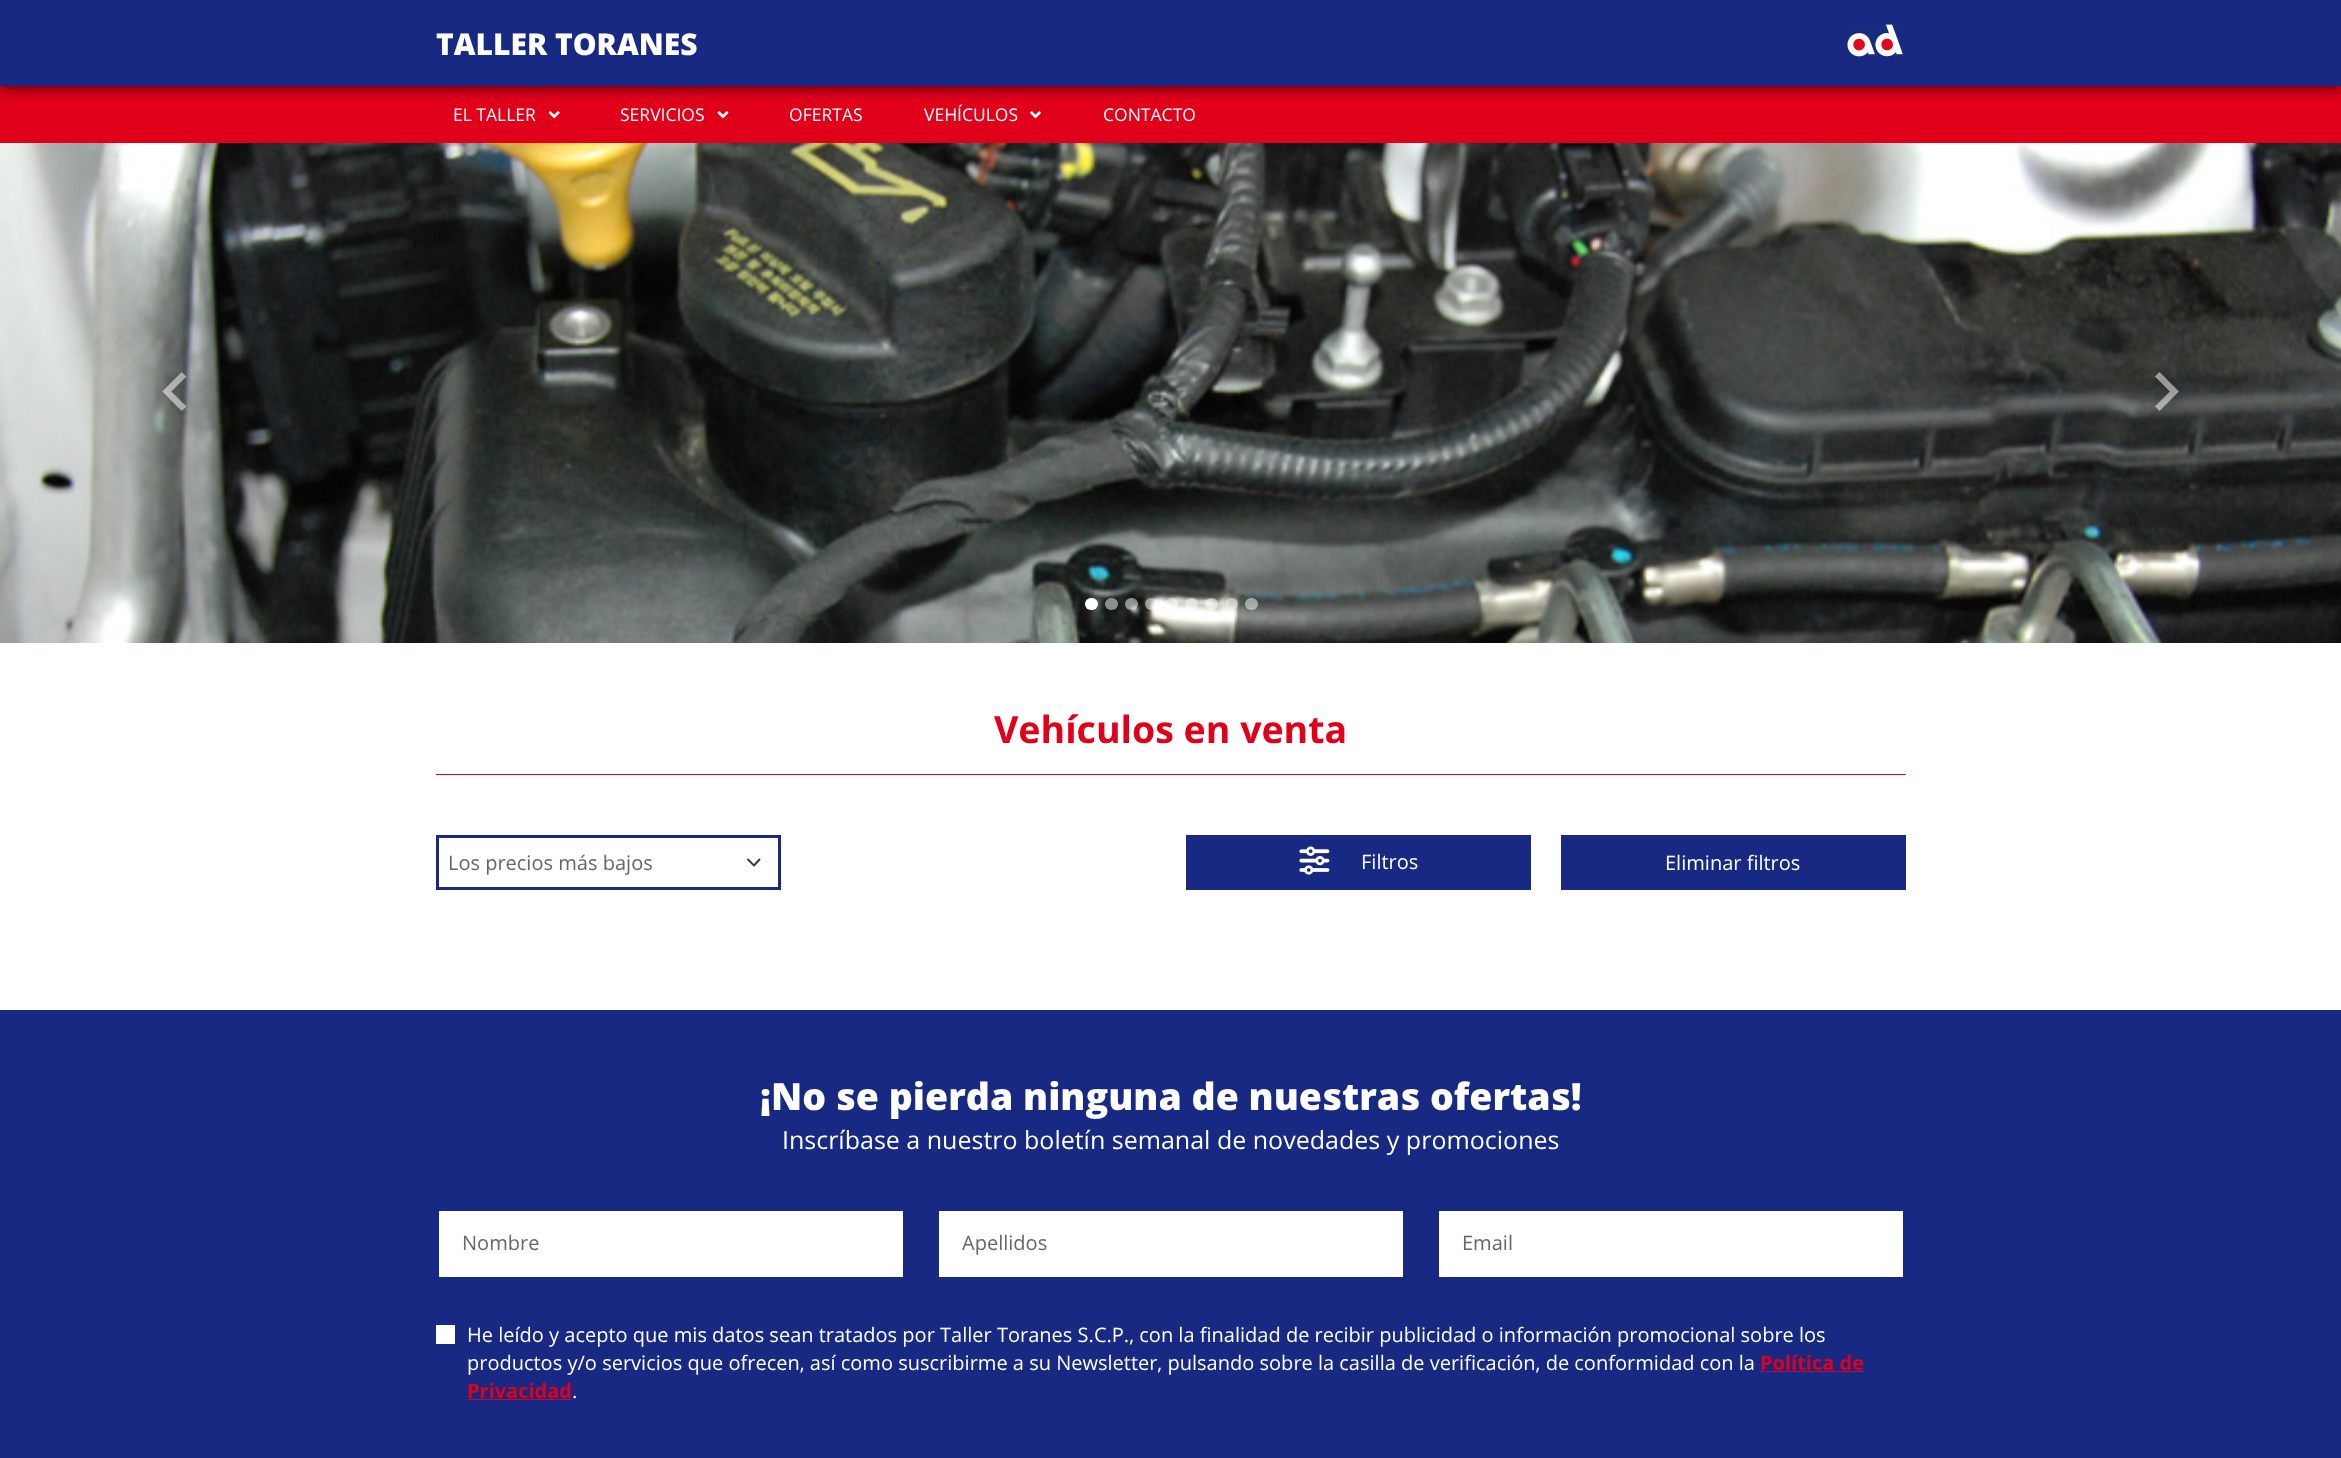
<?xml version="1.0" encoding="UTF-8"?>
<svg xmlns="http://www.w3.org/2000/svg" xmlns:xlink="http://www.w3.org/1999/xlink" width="2341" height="1458">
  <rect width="100%" height="100%" fill="#ffffff" />
  <rect y="86" width="2341" height="57" fill="#e1001a" />
  <rect y="4" width="2341" height="86" fill="#000000" fill-opacity="0.5" filter="blur(6px)" />
  <rect width="2341" height="86" fill="#172982" />
  <image x="1847" y="24" width="56" height="33" xlink:href="image1.png" />
  <image x="548" y="111" width="12" height="8" xlink:href="image2.png" />
  <image x="717" y="111" width="12" height="8" xlink:href="image3.png" />
  <image x="1030" y="111" width="11" height="8" xlink:href="image4.png" />
  <image x="0" y="143" width="2341" height="500" xlink:href="image5.png" />
  <image x="155" y="372" width="32" height="43" xlink:href="image6.png" />
  <image x="2155" y="372" width="28" height="42" xlink:href="image7.png" />
  <rect x="1085" y="598" width="13" height="12" rx="6" fill="#ffffff" />
  <rect x="1105" y="598" width="13" height="12" rx="6" fill="#ffffff" fill-opacity="0.5" />
  <rect x="1125" y="598" width="13" height="12" rx="6" fill="#ffffff" fill-opacity="0.5" />
  <rect x="1145" y="598" width="13" height="12" rx="6" fill="#ffffff" fill-opacity="0.5" />
  <rect x="1165" y="598" width="13" height="12" rx="6" fill="#ffffff" fill-opacity="0.5" />
  <rect x="1185" y="598" width="13" height="12" rx="6" fill="#ffffff" fill-opacity="0.5" />
  <rect x="1205" y="598" width="13" height="12" rx="6" fill="#ffffff" fill-opacity="0.5" />
  <rect x="1225" y="598" width="13" height="12" rx="6" fill="#ffffff" fill-opacity="0.5" />
  <rect x="1245" y="598" width="13" height="12" rx="6" fill="#ffffff" fill-opacity="0.5" />
  <rect x="436" y="774" width="1470" height="1" fill="#e1001a" />
  <path d="M 748 859.5 l 6 6 l 5.5 -6" fill="none" stroke="#343a40" stroke-width="1.9" stroke-linecap="round" stroke-linejoin="round" />
  <rect x="437.5" y="836.5" width="342" height="52" fill="none" stroke="#172982" stroke-width="3" />
  <rect x="1186" y="835" width="345" height="55" fill="#172982" />
  <image x="1299" y="846" width="31" height="29" xlink:href="image8.png" />
  <rect x="1561" y="835" width="345" height="55" fill="#172982" />
  <rect y="1010" width="2341" height="448" fill="#172982" />
  <rect x="439" y="1211" width="464" height="66" fill="#ffffff" />
  <rect x="939" y="1211" width="464" height="66" fill="#ffffff" />
  <rect x="1439" y="1211" width="464" height="66" fill="#ffffff" />
  <rect x="436" y="1325" width="19" height="19" fill="#ffffff" />
  <rect x="1760" y="1371" width="104" height="1" fill="#e1001a" />
  <rect x="468" y="1399" width="103" height="1" fill="#e1001a" />
  <text x="436" y="55" style="font-family: Open Sans; font-size: 30px; font-weight: 800; fill: #ffffff">TALLER TORANES</text>
  <text x="453" y="121" style="font-family: Open Sans; font-size: 17.5px; fill: #ffffff">EL TALLER</text>
  <text x="620" y="121" style="font-family: Open Sans; font-size: 17.5px; fill: #ffffff">SERVICIOS</text>
  <text x="789" y="121" style="font-family: Open Sans; font-size: 17.5px; fill: #ffffff">OFERTAS</text>
  <text x="924" y="121" style="font-family: Open Sans; font-size: 17.5px; fill: #ffffff">VEHÍCULOS</text>
  <text x="1103" y="121" style="font-family: Open Sans; font-size: 17.5px; fill: #ffffff">CONTACTO</text>
  <text x="994" y="743" style="font-family: Open Sans; font-size: 37.5px; font-weight: bold; fill: #e1001a">Vehículos en venta</text>
  <text x="448" y="870" style="font-family: Open Sans; font-size: 20px; fill: #666666">Los precios más bajos</text>
  <text x="1361" y="869" style="font-family: Open Sans; font-size: 20px; fill: #ffffff">Filtros</text>
  <text x="1665" y="870" style="font-family: Open Sans; font-size: 20px; fill: #ffffff">Eliminar filtros</text>
  <text x="760" y="1110" style="font-family: Open Sans; font-size: 37.5px; font-weight: 800; fill: #ffffff">¡No se pierda ninguna de nuestras ofertas!</text>
  <text x="782" y="1149" style="font-family: Open Sans; font-size: 25px; fill: #ffffff">Inscríbase a nuestro boletín semanal de novedades y promociones</text>
  <text x="462" y="1250" style="font-family: Open Sans; font-size: 20px; fill: #666666">Nombre</text>
  <text x="962" y="1250" style="font-family: Open Sans; font-size: 20px; fill: #666666">Apellidos</text>
  <text x="1462" y="1250" style="font-family: Open Sans; font-size: 20px; fill: #666666">Email</text>
  <text x="467" y="1342" style="font-family: Open Sans; font-size: 20px; fill: #ffffff">He leído y acepto que mis datos sean tratados por Taller Toranes S.C.P., con la finalidad de recibir publicidad o información promocional sobre los</text>
  <text x="467" y="1370" style="font-family: Open Sans; font-size: 20px; fill: #ffffff">productos y/o servicios que ofrecen, así como suscribirme a su Newsletter, pulsando sobre la casilla de verificación, de conformidad con la</text>
  <text x="1760" y="1370" style="font-family: Open Sans; font-size: 20px; font-weight: bold; fill: #e1001a">Política de</text>
  <text x="467" y="1398" style="font-family: Open Sans; font-size: 20px; font-weight: bold; fill: #e1001a">Privacidad</text>
  <text x="572" y="1398" style="font-family: Open Sans; font-size: 20px; fill: #ffffff">.</text>
</svg>
